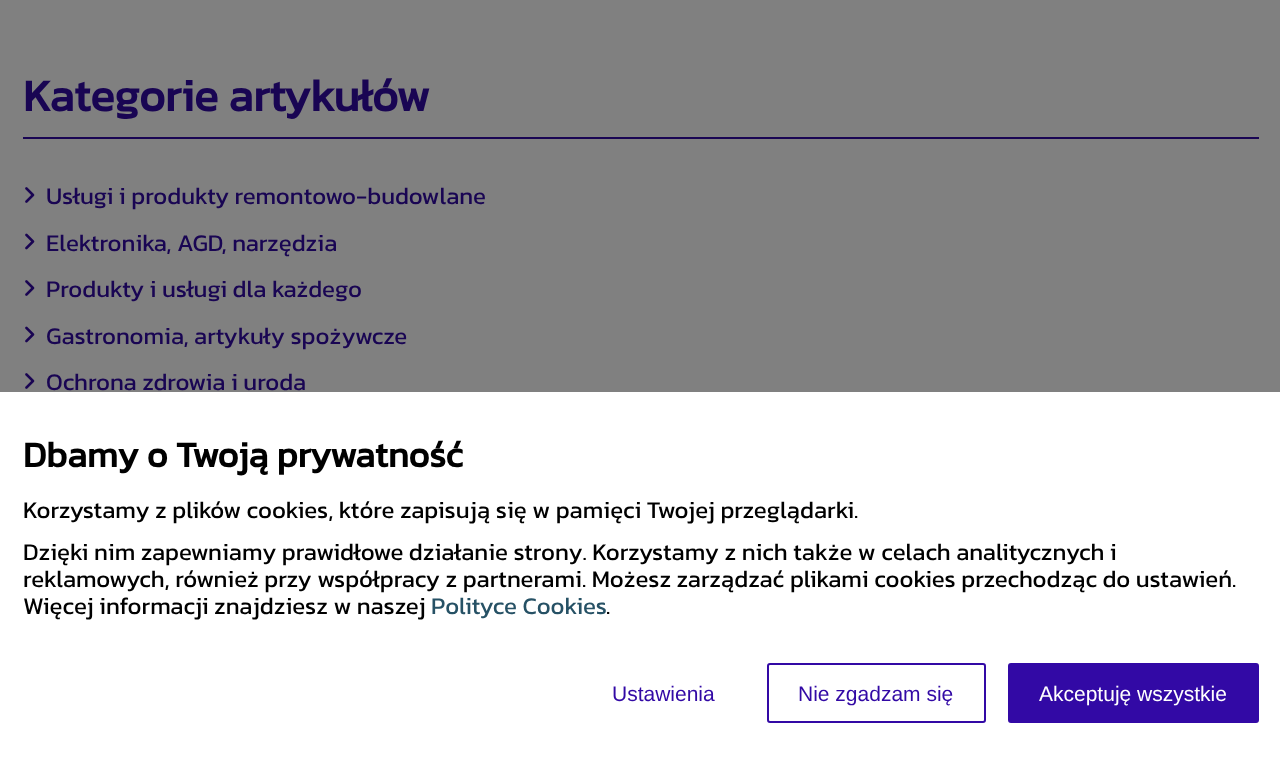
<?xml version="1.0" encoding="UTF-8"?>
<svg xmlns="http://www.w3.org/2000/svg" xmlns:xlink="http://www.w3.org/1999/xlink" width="1280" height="768">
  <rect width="100%" height="100%" fill="#808080" />
  <rect x="23" y="137" width="1236" height="2" fill="#190553" />
  <image x="25" y="187" width="10" height="16" xlink:href="image1.png" />
  <image x="25" y="233" width="10" height="17" xlink:href="image2.png" />
  <image x="25" y="280" width="10" height="16" xlink:href="image1.png" />
  <image x="25" y="326" width="10" height="17" xlink:href="image2.png" />
  <image x="25" y="373" width="10" height="16" xlink:href="image1.png" />
  <rect y="392" width="1280" height="376" fill="#ffffff" />
  <rect x="768" y="664" width="217" height="58" rx="2" fill="none" stroke="#3209a5" stroke-width="2" />
  <rect x="1009" y="664" width="249" height="58" rx="2" fill="#3209a5" stroke="#3209a5" stroke-width="2" />
  <text x="23" y="111" style="font-family: Kanit; font-size: 45px; font-weight: bold; fill: #190553">Kategorie artykułów</text>
  <text x="46" y="204" style="font-family: Kanit; font-size: 24px; fill: #190553">Usługi i produkty remontowo-budowlane</text>
  <text x="46" y="251" style="font-family: Kanit; font-size: 24px; fill: #190553">Elektronika, AGD, narzędzia</text>
  <text x="46" y="297" style="font-family: Kanit; font-size: 24px; fill: #190553">Produkty i usługi dla każdego</text>
  <text x="46" y="344" style="font-family: Kanit; font-size: 24px; fill: #190553">Gastronomia, artykuły spożywcze</text>
  <text x="46" y="390" style="font-family: Kanit; font-size: 24px; fill: #190553">Ochrona zdrowia i uroda</text>
  <text x="23" y="467" style="font-family: Kanit; font-size: 36px; font-weight: bold; fill: #000000">Dbamy o Twoją prywatność</text>
  <text x="23" y="518" style="font-family: Kanit; font-size: 24px; fill: #000000">Korzystamy z plików cookies, które zapisują się w pamięci Twojej przeglądarki.</text>
  <text x="23" y="560" style="font-family: Kanit; font-size: 24px; fill: #000000">Dzięki nim zapewniamy prawidłowe działanie strony. Korzystamy z nich także w celach analitycznych i</text>
  <text x="23" y="587" style="font-family: Kanit; font-size: 24px; fill: #000000">reklamowych, również przy współpracy z partnerami. Możesz zarządzać plikami cookies przechodząc do ustawień.</text>
  <text x="23" y="614" style="font-family: Kanit; font-size: 24px; fill: #000000">Więcej informacji znajdziesz w naszej</text>
  <text x="431" y="614" style="font-family: Kanit; font-size: 24px; fill: #265165">Polityce Cookies</text>
  <text x="606" y="614" style="font-family: Kanit; font-size: 24px; fill: #000000">.</text>
  <text x="612" y="701" style="font-family: Liberation Sans; font-size: 21px; fill: #3209a5">Ustawienia</text>
  <text x="798" y="701" style="font-family: Liberation Sans; font-size: 21px; fill: #3209a5">Nie zgadzam się</text>
  <text x="1039" y="701" style="font-family: Liberation Sans; font-size: 21px; fill: #ffffff">Akceptuję wszystkie</text>
</svg>
